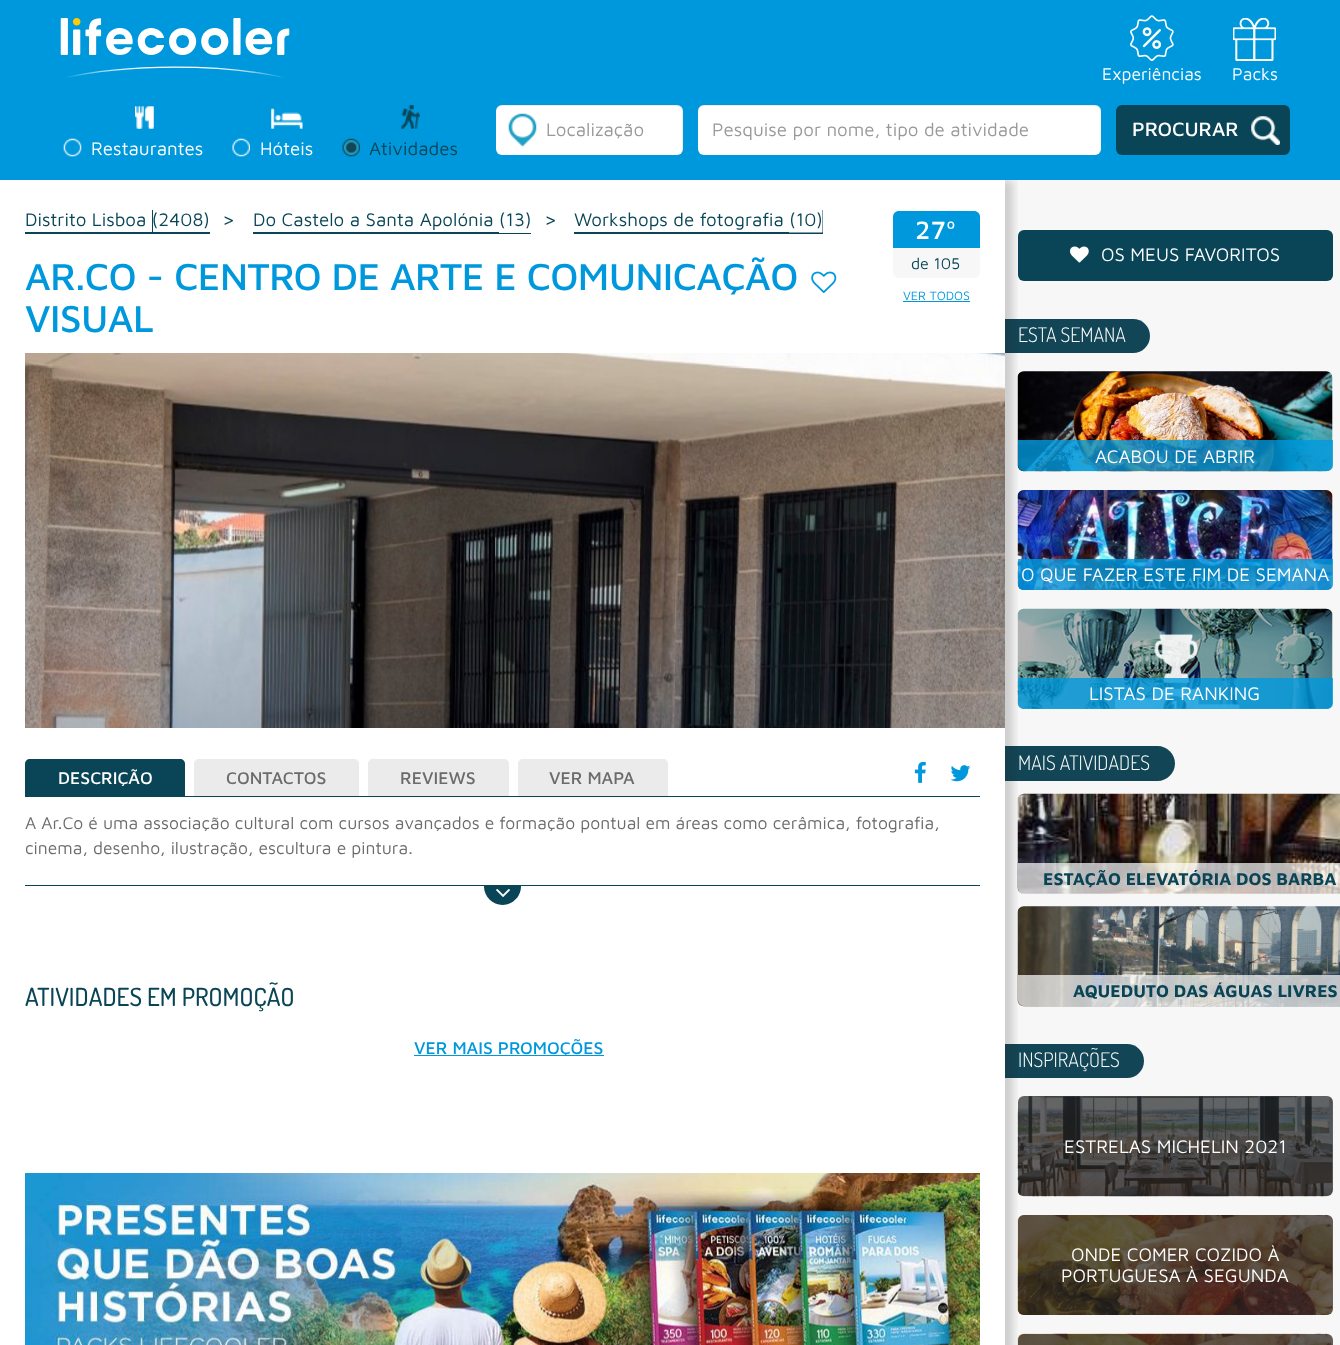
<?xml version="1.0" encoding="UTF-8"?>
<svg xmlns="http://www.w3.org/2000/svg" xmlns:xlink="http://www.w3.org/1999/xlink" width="1340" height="1345">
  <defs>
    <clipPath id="clip1"><rect x="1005" y="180" width="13" height="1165" /></clipPath>
  </defs>
  <rect width="100%" height="100%" fill="#ffffff" />
  <rect x="1005" y="180" width="335" height="1165" fill="#f7f7f7" />
  <rect x="1018" y="230" width="315" height="51" rx="6" fill="#094556" />
  <path d="M 1005 319 h 128 c 9.5 0 17 7.5 17 17 c 0 9.5 -7.5 17 -17 17 h -128 z" fill="#124555" />
  <image x="1017" y="371" width="316" height="101" xlink:href="image19.png" />
  <path d="M 1018 440 h 315 v 25 c 0 3.5 -2.5 6 -6 6 h -303 c -3.5 0 -6 -2.5 -6 -6 z" fill="#0098dd" fill-opacity="0.8" />
  <image x="1017" y="490" width="316" height="100" xlink:href="image20.png" />
  <path d="M 1018 559 h 315 v 25 c 0 3.5 -2.5 6 -6 6 h -303 c -3.5 0 -6 -2.5 -6 -6 z" fill="#0098dd" fill-opacity="0.8" />
  <image x="1017" y="608" width="316" height="101" xlink:href="image21.png" />
  <path d="M 1018 678 h 315 v 25 c 0 3.5 -2.5 6 -6 6 h -303 c -3.5 0 -6 -2.5 -6 -6 z" fill="#0098dd" fill-opacity="0.8" />
  <path d="M 1005 746 h 152.5 c 9.5 0 17.5 8 17.5 17.5 c 0 9.5 -8 17.5 -17.5 17.5 h -152.5 z" fill="#124555" />
  <image x="1017" y="793" width="323" height="101" xlink:href="image22.png" />
  <path d="M 1018 863 h 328 v 25 c 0 3.5 -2.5 6 -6 6 h -316 c -3.5 0 -6 -2.5 -6 -6 z" fill="#ffffff" fill-opacity="0.7" />
  <image x="1017" y="906" width="323" height="101" xlink:href="image23.png" />
  <path d="M 1018 975 h 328 v 25 c 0 3.5 -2.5 6 -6 6 h -316 c -3.5 0 -6 -2.5 -6 -6 z" fill="#ffffff" fill-opacity="0.7" />
  <path d="M 1005 1044 h 122 c 9.5 0 17 7.5 17 17 c 0 9.5 -7.5 17 -17 17 h -122 z" fill="#124555" />
  <image x="1017" y="1096" width="316" height="101" xlink:href="image24.png" />
  <rect x="1018" y="1096" width="315" height="100" rx="6" fill="#232323" fill-opacity="0.7" />
  <image x="1017" y="1215" width="316" height="100" xlink:href="image25.png" />
  <rect x="1018" y="1215" width="315" height="100" rx="6" fill="#232323" fill-opacity="0.7" />
  <image x="1017" y="1333" width="316" height="12" xlink:href="image26.png" />
  <rect x="1018" y="1334" width="315" height="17" rx="6" fill="#232323" fill-opacity="0.7" />
  <g clip-path="url(#clip1)">
    <rect x="8" y="180" width="1005" height="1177" fill="#292929" fill-opacity="0.2" filter="blur(4px)" />
  </g>
  <rect width="1340" height="180" fill="#0098dd" />
  <image x="60" y="18" width="230" height="60" xlink:href="image1.png" />
  <image x="1130" y="15" width="44" height="46" xlink:href="image2.png" />
  <image x="1233" y="18" width="43" height="43" xlink:href="image3.png" />
  <rect x="496" y="105" width="187" height="50" rx="6" fill="#ffffff" />
  <path d="M 502 106 h 174 c 4 0 6 3 6 6 v 38 c 0 1 0 2 -1 3 c 1 -1 2 -2 2 -4 v -38 c 0 -3 -3 -6 -6 -6 h -175 c -3 0 -6 3 -6 6 v 1 c 0 -3 3 -6 6 -6 z" fill="#000000" fill-opacity="0.07" />
  <image x="508" y="113" width="29" height="34" xlink:href="image4.png" />
  <rect x="698" y="105" width="403" height="50" rx="6" fill="#ffffff" />
  <path d="M 704 106 h 391 c 3 0 6 3 6 6 v -1 c 0 -3 -3 -6 -6 -6 h -391 c -3 0 -6 3 -6 6 v 1 c 0 -3 2 -6 6 -6 z" fill="#000000" fill-opacity="0.07" />
  <rect x="1116" y="105" width="174" height="50" rx="6" fill="#094556" />
  <image x="1251" y="116" width="29" height="29" xlink:href="image5.png" />
  <image x="135" y="106" width="19" height="23" xlink:href="image6.png" />
  <image x="63" y="138" width="19" height="19" xlink:href="image7.png" />
  <image x="271" y="108" width="32" height="21" xlink:href="image8.png" />
  <image x="232" y="138" width="18" height="19" xlink:href="image9.png" />
  <image x="401" y="105" width="19" height="24" xlink:href="image10.png" />
  <image x="342" y="138" width="18" height="19" xlink:href="image11.png" />
  <path d="M 25 232 v 2 h 128 v -24 h -1 v 22 z" fill="#094556" />
  <rect x="153" y="232" width="57" height="2" fill="#094556" />
  <path d="M 253 232 v 2 h 246 v -24 v 22 z" fill="#094556" />
  <rect x="499" y="233" width="32" height="1" fill="#094556" />
  <path d="M 574 232 v 2 h 215 v -24 v 22 z" fill="#094556" />
  <path d="M 789 232.5 v 1.5 h 34 v -24 h -0.5 v 22.5 z" fill="#094556" />
  <image x="811" y="271" width="26" height="22" xlink:href="image12.png" />
  <path d="M 899 211 h 75 c 3.5 0 6 2.5 6 6 v 31 h -87 v -31 c 0 -3.5 2.5 -6 6 -6 z" fill="#0098dd" />
  <path d="M 893 248 h 87 v 24 c 0 3.5 -2.5 6 -6 6 h -75 c -3.5 0 -6 -2.5 -6 -6 z" fill="#f7f7f7" />
  <rect x="903" y="301" width="67" height="1" fill="#0098dd" />
  <image x="25" y="353" width="980" height="375" xlink:href="image13.png" />
  <rect x="25" y="796" width="955" height="1" fill="#094556" />
  <path d="M 30 759 h 150 c 3 0 5 2 5 5 v 32 h -160 v -32 c 0 -3 2 -5 5 -5 z" fill="#094556" />
  <path d="M 199 759 h 155 c 3 0 5 2 5 5 v 32 h -165 v -32 c 0 -3 2 -5 5 -5 z" fill="#ebebeb" />
  <path d="M 373 759 h 131 c 3 0 5 2 5 5 v 32 h -141 v -32 c 0 -3 2 -5 5 -5 z" fill="#ebebeb" />
  <path d="M 523 759 h 140 c 3 0 5 2 5 5 v 32 h -150 v -32 c 0 -3 2 -5 5 -5 z" fill="#ebebeb" />
  <image x="914" y="762" width="12" height="21" xlink:href="image14.png" />
  <image x="950" y="765" width="21" height="17" xlink:href="image15.png" />
  <rect x="25" y="885" width="955" height="1" fill="#094556" />
  <path d="M 484 886 h 37 v 0.5 c 0 10 -8.5 18.5 -18.5 18.5 c -10 0 -18.5 -8.5 -18.5 -18.5 z" fill="#094556" />
  <image x="496" y="889" width="14" height="8" xlink:href="image16.png" />
  <rect x="414" y="1055" width="190" height="1" fill="#0098dd" />
  <image x="25" y="1173" width="955" height="172" xlink:href="image17.png" />
  <image x="1070" y="246" width="19" height="17" xlink:href="image18.png" />
  <text x="1102" y="80" style="font-family: Maven Pro; font-size: 17.5px; fill: #ffffff">Experiências</text>
  <text x="1232" y="80" style="font-family: Maven Pro; font-size: 17.5px; fill: #ffffff">Packs</text>
  <text x="546" y="136" style="font-family: Maven Pro; font-size: 18.75px; fill: #999999">Localização</text>
  <text x="712" y="136" style="font-family: Maven Pro; font-size: 18.75px; fill: #999999">Pesquise por nome, tipo de atividade</text>
  <text x="1132" y="136" style="font-family: Maven Pro; font-size: 20px; font-weight: 500; fill: #ffffff">PROCURAR</text>
  <text x="91" y="155" style="font-family: Maven Pro; font-size: 18.75px; fill: #ffffff">Restaurantes</text>
  <text x="260" y="155" style="font-family: Maven Pro; font-size: 18.75px; fill: #ffffff">Hóteis</text>
  <text x="369" y="155" style="font-family: Maven Pro; font-size: 18.75px; fill: #094556">Atividades</text>
  <text x="25" y="226" style="font-family: Maven Pro; font-size: 18.75px; fill: #094556">Distrito Lisboa (2408)</text>
  <text x="222" y="226" style="font-family: Maven Pro; font-size: 20px; fill: #094556">&gt;</text>
  <text x="253" y="226" style="font-family: Maven Pro; font-size: 18.75px; fill: #094556">Do Castelo a Santa Apolónia (13)</text>
  <text x="544" y="226" style="font-family: Maven Pro; font-size: 20px; fill: #094556">&gt;</text>
  <text x="574" y="226" style="font-family: Maven Pro; font-size: 18.75px; fill: #094556">Workshops de fotografia (10)</text>
  <text x="25" y="290" style="font-family: Maven Pro; font-size: 38.75px; font-weight: 500; letter-spacing: -0.6px; fill: #0098dd">AR.CO - CENTRO DE ARTE E COMUNICAÇÃO</text>
  <text x="25" y="332" style="font-family: Maven Pro; font-size: 38.75px; font-weight: 500; letter-spacing: -0.6px; fill: #0098dd">VISUAL</text>
  <text x="915" y="239" style="font-family: Maven Pro; font-size: 26px; font-weight: 500; fill: #ffffff">27º</text>
  <text x="911" y="269" style="font-family: Maven Pro; font-size: 16px; fill: #094556">de 105</text>
  <text x="903" y="300" style="font-family: Maven Pro; font-size: 12.5px; fill: #0098dd">VER TODOS</text>
  <text x="58" y="784" style="font-family: Maven Pro; font-size: 17.5px; font-weight: 500; fill: #ffffff">DESCRIÇÃO</text>
  <text x="226" y="784" style="font-family: Maven Pro; font-size: 17.5px; font-weight: 500; fill: #6b6b6b">CONTACTOS</text>
  <text x="400" y="784" style="font-family: Maven Pro; font-size: 17.5px; font-weight: 500; fill: #6b6b6b">REVIEWS</text>
  <text x="549" y="784" style="font-family: Maven Pro; font-size: 17.5px; font-weight: 500; fill: #6b6b6b">VER MAPA</text>
  <text x="25" y="829" style="font-family: Maven Pro; font-size: 17.5px; fill: #6b6b6b">A Ar.Co é uma associação cultural com cursos avançados e formação pontual em áreas como cerâmica, fotografia,</text>
  <text x="25" y="854" style="font-family: Maven Pro; font-size: 17.5px; fill: #6b6b6b">cinema, desenho, ilustração, escultura e pintura.</text>
  <text x="25" y="1006" style="font-family: Dosis; font-size: 25px; font-weight: 500; fill: #094556">ATIVIDADES EM PROMOÇÃO</text>
  <text x="414" y="1054" style="font-family: Maven Pro; font-size: 17.5px; font-weight: 500; fill: #0098dd">VER MAIS PROMOÇÕES</text>
  <text x="1101" y="261" style="font-family: Maven Pro; font-size: 18.75px; fill: #ffffff">OS MEUS FAVORITOS</text>
  <text x="1018" y="342" style="font-family: Dosis; font-size: 20px; font-weight: 300; fill: #ffffff">ESTA SEMANA</text>
  <text x="1095" y="463" style="font-family: Maven Pro; font-size: 18.75px; fill: #ffffff">ACABOU DE ABRIR</text>
  <text x="1021" y="581" style="font-family: Maven Pro; font-size: 18.75px; fill: #ffffff">O QUE FAZER ESTE FIM DE SEMANA</text>
  <text x="1089" y="700" style="font-family: Maven Pro; font-size: 18.75px; fill: #ffffff">LISTAS DE RANKING</text>
  <text x="1018" y="770" style="font-family: Dosis; font-size: 20px; font-weight: 300; fill: #ffffff">MAIS ATIVIDADES</text>
  <text x="1043" y="885" style="font-family: Maven Pro; font-size: 17.5px; font-weight: bold; fill: #094556">ESTAÇÃO ELEVATÓRIA DOS BARBA</text>
  <text x="1073" y="997" style="font-family: Maven Pro; font-size: 17.5px; font-weight: bold; fill: #094556">AQUEDUTO DAS ÁGUAS LIVRES</text>
  <text x="1018" y="1067" style="font-family: Dosis; font-size: 20px; font-weight: 300; fill: #ffffff">INSPIRAÇÕES</text>
  <text x="1064" y="1153" style="font-family: Maven Pro; font-size: 18.75px; fill: #ffffff">ESTRELAS MICHELIN 2021</text>
  <text x="1071" y="1261" style="font-family: Maven Pro; font-size: 18.75px; fill: #ffffff">ONDE COMER COZIDO À</text>
  <text x="1061" y="1282" style="font-family: Maven Pro; font-size: 18.75px; fill: #ffffff">PORTUGUESA À SEGUNDA</text>
</svg>
